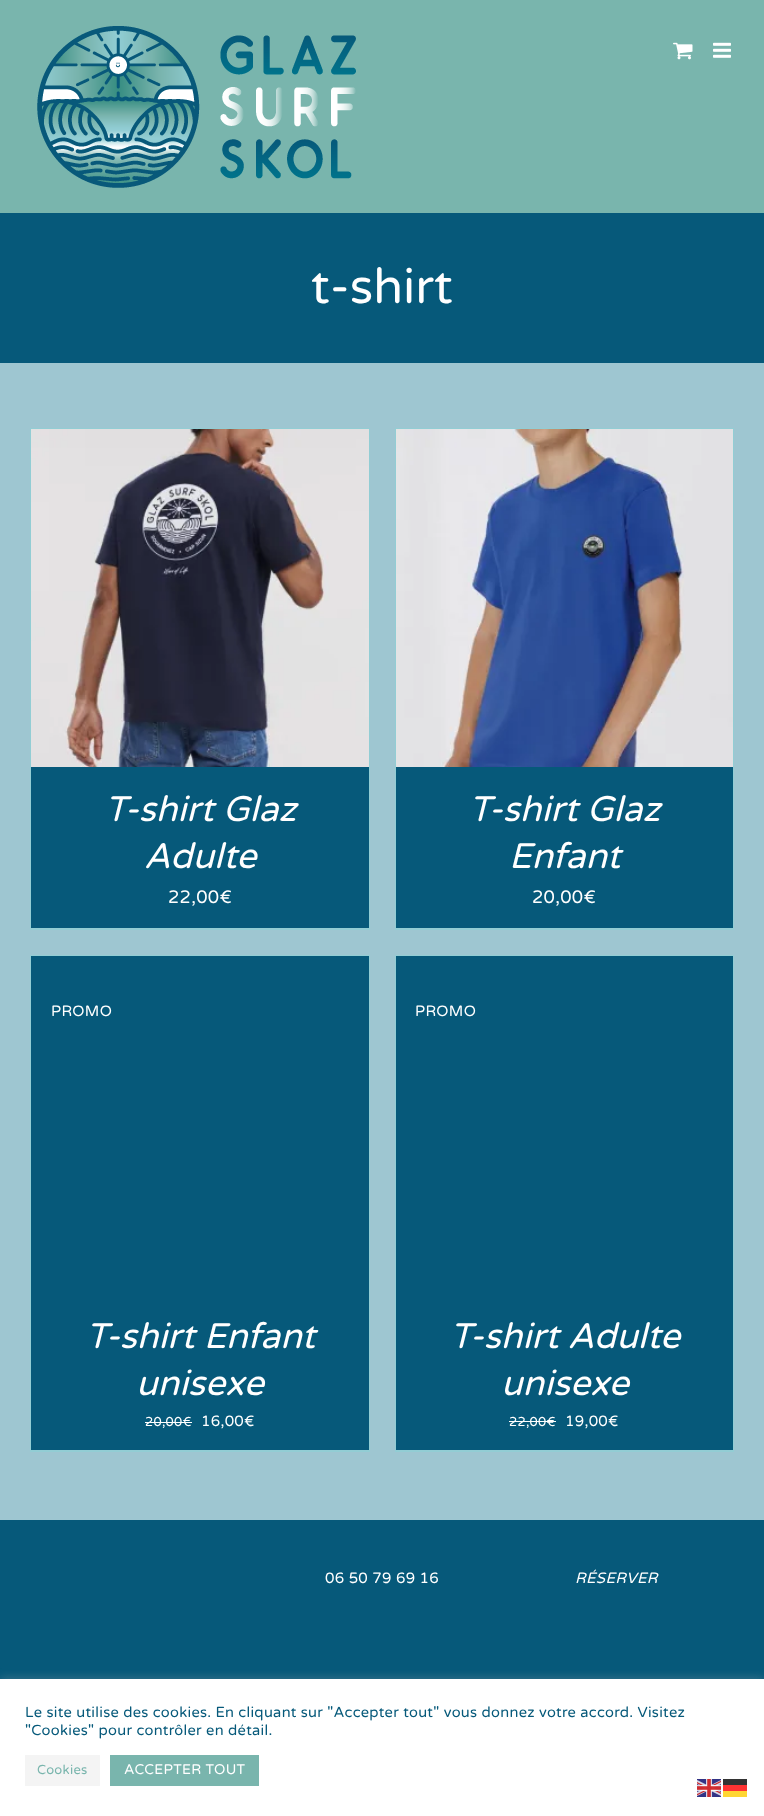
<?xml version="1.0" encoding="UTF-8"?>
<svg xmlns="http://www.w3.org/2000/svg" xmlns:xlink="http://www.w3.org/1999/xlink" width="764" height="1816">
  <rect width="100%" height="100%" fill="#9ec6d1" />
  <rect width="764" height="213" fill="#79b5ad" />
  <image x="37" y="26" width="319" height="162" xlink:href="image1.png" />
  <image x="673" y="42" width="20" height="18" xlink:href="image2.png" />
  <image x="713" y="42" width="18" height="16" xlink:href="image3.png" />
  <rect y="213" width="764" height="150" fill="#06597a" />
  <rect x="31" y="767" width="338" height="161" fill="#06597a" />
  <rect x="30" y="428" width="340" height="1" fill="#92cdd4" />
  <rect x="369" y="428" width="1" height="502" fill="#92cdd4" />
  <rect x="30" y="928" width="340" height="2" fill="#92cdd4" />
  <rect x="30" y="428" width="1" height="502" fill="#92cdd4" />
  <image x="31" y="429" width="338" height="338" xlink:href="image4.png" />
  <rect x="396" y="767" width="337" height="161" fill="#06597a" />
  <rect x="395" y="428" width="339" height="1" fill="#92cdd4" />
  <rect x="733" y="428" width="1" height="502" fill="#92cdd4" />
  <rect x="395" y="928" width="339" height="2" fill="#92cdd4" />
  <rect x="395" y="428" width="1" height="502" fill="#92cdd4" />
  <image x="396" y="429" width="337" height="338" xlink:href="image5.png" />
  <rect x="31" y="956" width="338" height="494" fill="#06597a" />
  <rect x="30" y="955" width="340" height="1" fill="#92cdd4" />
  <rect x="369" y="955" width="1" height="497" fill="#92cdd4" />
  <rect x="30" y="1450" width="340" height="2" fill="#92cdd4" />
  <rect x="30" y="955" width="1" height="497" fill="#92cdd4" />
  <rect x="145" y="1422" width="47" height="1" fill="#ffffff" />
  <rect x="396" y="956" width="337" height="494" fill="#06597a" />
  <rect x="395" y="955" width="339" height="1" fill="#92cdd4" />
  <rect x="733" y="955" width="1" height="497" fill="#92cdd4" />
  <rect x="395" y="1450" width="339" height="2" fill="#92cdd4" />
  <rect x="395" y="955" width="1" height="497" fill="#92cdd4" />
  <rect x="509" y="1421" width="47" height="1" fill="#ffffff" />
  <rect y="1520" width="764" height="159" fill="#06597a" />
  <rect y="1678" width="764" height="137" fill="#acabab" fill-opacity="0.3" filter="blur(5px)" />
  <rect y="1679" width="764" height="137" fill="#ffffff" />
  <rect x="25" y="1755" width="75" height="31" fill="#f4f4f4" />
  <rect x="110" y="1755" width="149" height="31" fill="#79b5ad" />
  <image x="697" y="1779" width="24" height="18" xlink:href="image6.png" />
  <rect x="723" y="1779" width="24" height="6" fill="#333333" />
  <rect x="723" y="1785" width="24" height="6" fill="#ff3333" />
  <rect x="723" y="1791" width="24" height="6" fill="#ffd633" />
  <text x="311" y="303" style="font-family: Varela Round; font-size: 49px; fill: #ffffff">t-shirt</text>
  <text x="105" y="821" style="font-family: Varela Round; font-size: 35.5px; font-style: italic; fill: #ffffff">T-shirt Glaz</text>
  <text x="144" y="868" style="font-family: Varela Round; font-size: 35.5px; font-style: italic; fill: #ffffff">Adulte</text>
  <text x="168" y="903" style="font-family: Varela Round; font-size: 18px; letter-spacing: 0.3px; fill: #ffffff">22,00€</text>
  <text x="469" y="821" style="font-family: Varela Round; font-size: 35.5px; font-style: italic; fill: #ffffff">T-shirt Glaz</text>
  <text x="509" y="868" style="font-family: Varela Round; font-size: 35.5px; font-style: italic; fill: #ffffff">Enfant</text>
  <text x="532" y="903" style="font-family: Varela Round; font-size: 18px; letter-spacing: 0.3px; fill: #ffffff">20,00€</text>
  <text x="51" y="1016" style="font-family: Varela Round; font-size: 15px; letter-spacing: 0.3px; fill: #ffffff">PROMO</text>
  <text x="86" y="1348" style="font-family: Varela Round; font-size: 35.5px; font-style: italic; fill: #ffffff">T-shirt Enfant</text>
  <text x="136" y="1395" style="font-family: Varela Round; font-size: 35.5px; font-style: italic; fill: #ffffff">unisexe</text>
  <text x="145" y="1426" style="font-family: Varela Round; font-size: 13px; letter-spacing: 0.3px; fill: #ffffff">20,00€</text>
  <text x="201" y="1426" style="font-family: Varela Round; font-size: 15px; letter-spacing: 0.3px; fill: #ffffff">16,00€</text>
  <text x="415" y="1016" style="font-family: Varela Round; font-size: 15px; letter-spacing: 0.3px; fill: #ffffff">PROMO</text>
  <text x="450" y="1348" style="font-family: Varela Round; font-size: 35.5px; font-style: italic; fill: #ffffff">T-shirt Adulte</text>
  <text x="501" y="1395" style="font-family: Varela Round; font-size: 35.5px; font-style: italic; fill: #ffffff">unisexe</text>
  <text x="509" y="1426" style="font-family: Varela Round; font-size: 13px; letter-spacing: 0.3px; fill: #ffffff">22,00€</text>
  <text x="565" y="1426" style="font-family: Varela Round; font-size: 15px; letter-spacing: 0.3px; fill: #ffffff">19,00€</text>
  <text x="325" y="1583" style="font-family: Varela Round; font-size: 15px; letter-spacing: 0.3px; fill: #ffffff">06 50 79 69 16</text>
  <text x="575" y="1583" style="font-family: Varela Round; font-size: 15px; font-style: italic; letter-spacing: 0.3px; fill: #ffffff">RÉSERVER</text>
  <text x="25" y="1717" style="font-family: Varela Round; font-size: 14.65px; letter-spacing: 0.3px; fill: #06597a">Le site utilise des cookies. En cliquant sur "Accepter tout" vous donnez votre accord. Visitez</text>
  <text x="25" y="1735" style="font-family: Varela Round; font-size: 14.65px; letter-spacing: 0.3px; fill: #06597a">"Cookies" pour contrôler en détail.</text>
  <text x="37" y="1774" style="font-family: Varela Round; font-size: 13px; letter-spacing: 0.3px; fill: #79b5ad">Cookies</text>
  <text x="124" y="1774" style="font-family: Varela Round; font-size: 14px; letter-spacing: 0.3px; fill: #ffffff">ACCEPTER TOUT</text>
</svg>
